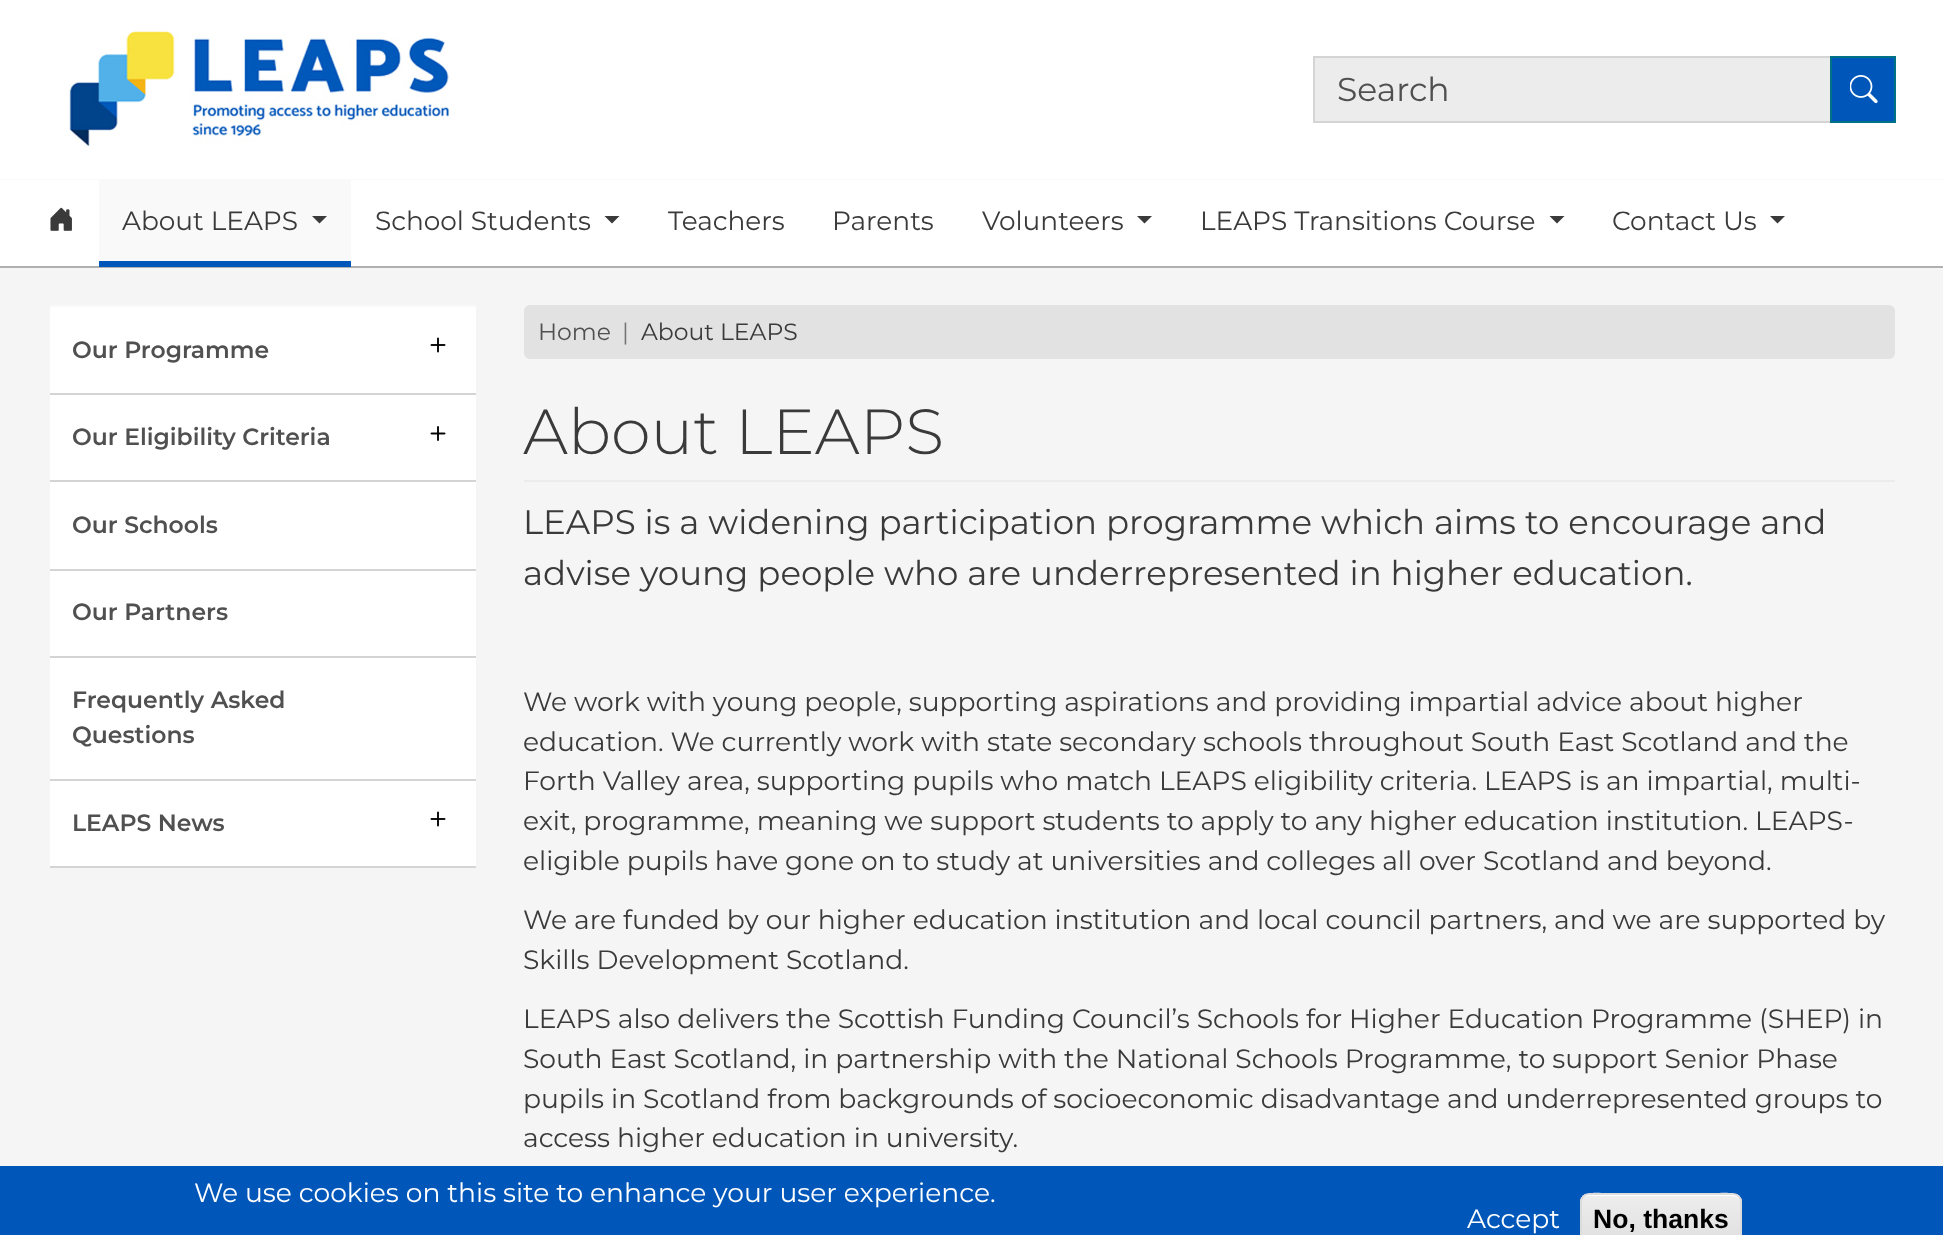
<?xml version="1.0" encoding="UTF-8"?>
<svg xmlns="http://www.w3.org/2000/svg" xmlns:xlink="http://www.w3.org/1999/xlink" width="1943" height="1235">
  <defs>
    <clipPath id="clip1"><rect x="1580" y="1193" width="162" height="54" rx="9" /></clipPath>
    <linearGradient id="g1" gradientUnits="userSpaceOnUse" x1="1661" y1="1194" x2="1661" y2="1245"><stop offset="0.05" stop-color="#ededed" /><stop offset="1" stop-color="#dfdfdf" /></linearGradient>
  </defs>
  <rect width="100%" height="100%" fill="#ffffff" />
  <image x="69" y="31" width="380" height="116" xlink:href="image1.png" />
  <rect x="1314" y="57" width="517" height="65" fill="#ececec" stroke="#d4d4d4" stroke-width="2" />
  <rect x="1832" y="58" width="62" height="63" fill="#0057b9" />
  <image x="1850" y="75" width="28" height="29" xlink:href="image2.png" />
  <rect x="1831" y="57" width="64" height="65" fill="none" stroke="#007288" stroke-width="2" />
  <rect y="179" width="1943" height="1" fill="#f9f9f9" />
  <rect y="266" width="1943" height="2" fill="#b0b0b0" />
  <image x="50" y="207" width="22" height="24" xlink:href="image3.png" />
  <rect x="99" y="180" width="252" height="81" fill="#f9f9f9" />
  <rect x="99" y="261" width="252" height="6" fill="#0057b9" />
  <path d="M 312 216 h 15 l -7.5 7.5 z" fill="#3a3a3a" />
  <path d="M 604.5 216 h 15 l -7.5 7.5 z" fill="#3a3a3a" />
  <path d="M 1137 216 h 15 l -7.5 7.5 z" fill="#3a3a3a" />
  <path d="M 1549.5 216 h 15 l -7.5 7.5 z" fill="#3a3a3a" />
  <path d="M 1770 216 h 15 l -7.5 7.5 z" fill="#3a3a3a" />
  <rect y="268" width="1943" height="898" fill="#f5f5f5" />
  <rect x="50" y="307" width="426" height="559" fill="#ffffff" />
  <rect x="50" y="305" width="426" height="2" fill="#f9f9f9" />
  <rect x="50" y="393" width="426" height="2" fill="#d4d4d4" />
  <image x="430" y="337" width="16" height="16" xlink:href="image4.png" />
  <rect x="50" y="480" width="426" height="2" fill="#d4d4d4" />
  <image x="430" y="426" width="16" height="15" xlink:href="image5.png" />
  <rect x="50" y="569" width="426" height="2" fill="#d4d4d4" />
  <rect x="50" y="656" width="426" height="2" fill="#d4d4d4" />
  <rect x="50" y="779" width="426" height="2" fill="#d4d4d4" />
  <rect x="50" y="866" width="426" height="2" fill="#d4d4d4" />
  <image x="430" y="811" width="16" height="16" xlink:href="image4.png" />
  <rect x="524" y="305" width="1371" height="54" rx="6" fill="#e2e2e2" />
  <rect x="524" y="480" width="1371" height="2" fill="#ececec" />
  <rect y="1166" width="1943" height="69" fill="#0057b9" />
  <g clip-path="url(#clip1)">
    <rect x="1580" y="1194" width="162" height="41" fill="url(#g1)" />
  </g>
  <path d="M 1588 1196 h 144 c 5 0 8 3 8 7 c 0 -15 -25 -9 -32 -9 h -95 c -7 0 -32 -6 -32 9 c 0 -4 3 -7 7 -7 z" fill="#ffffff" />
  <rect x="1581" y="1194" width="160" height="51" rx="8" fill="none" stroke="#dcdcdc" stroke-width="2" />
  <text x="1337" y="101" style="font-family: Montserrat; font-size: 33px; fill: #505050">Search</text>
  <text x="122" y="230" style="font-family: Montserrat; font-size: 26.4px; fill: #3a3a3a">About LEAPS</text>
  <text x="375" y="230" style="font-family: Montserrat; font-size: 26.4px; fill: #3a3a3a">School Students</text>
  <text x="668" y="230" style="font-family: Montserrat; font-size: 26.4px; fill: #3a3a3a">Teachers</text>
  <text x="832" y="230" style="font-family: Montserrat; font-size: 26.4px; fill: #3a3a3a">Parents</text>
  <text x="982" y="230" style="font-family: Montserrat; font-size: 26.4px; fill: #3a3a3a">Volunteers</text>
  <text x="1200" y="230" style="font-family: Montserrat; font-size: 26.4px; fill: #3a3a3a">LEAPS Transitions Course</text>
  <text x="1612" y="230" style="font-family: Montserrat; font-size: 26.4px; fill: #3a3a3a">Contact Us</text>
  <text x="72" y="358" style="font-family: Montserrat; font-size: 23.5px; font-weight: 600; fill: #505050">Our Programme</text>
  <text x="72" y="445" style="font-family: Montserrat; font-size: 23.5px; font-weight: 600; fill: #505050">Our Eligibility Criteria</text>
  <text x="72" y="533" style="font-family: Montserrat; font-size: 23.5px; font-weight: 600; fill: #505050">Our Schools</text>
  <text x="72" y="620" style="font-family: Montserrat; font-size: 23.5px; font-weight: 600; fill: #505050">Our Partners</text>
  <text x="72" y="708" style="font-family: Montserrat; font-size: 23.5px; font-weight: 600; fill: #505050">Frequently Asked</text>
  <text x="72" y="743" style="font-family: Montserrat; font-size: 23.5px; font-weight: 600; fill: #505050">Questions</text>
  <text x="72" y="831" style="font-family: Montserrat; font-size: 23.5px; font-weight: 600; fill: #505050">LEAPS News</text>
  <text x="538" y="340" style="font-family: Montserrat; font-size: 23.5px; fill: #505050">Home</text>
  <text x="622" y="340" style="font-family: Montserrat; font-size: 23.5px; fill: #747474">|</text>
  <text x="641" y="340" style="font-family: Montserrat; font-size: 23.5px; fill: #3a3a3a">About LEAPS</text>
  <text x="523" y="454" style="font-family: Montserrat; font-size: 63.75px; font-weight: 300; fill: #3a3a3a">About LEAPS</text>
  <text x="523" y="534" style="font-family: Montserrat; font-size: 34.05px; fill: #3a3a3a">LEAPS is a widening participation programme which aims to encourage and</text>
  <text x="523" y="585" style="font-family: Montserrat; font-size: 34.05px; fill: #3a3a3a">advise young people who are underrepresented in higher education.</text>
  <text x="523" y="711" style="font-family: Montserrat; font-size: 26.55px; fill: #3a3a3a">We work with young people, supporting aspirations and providing impartial advice about higher</text>
  <text x="523" y="751" style="font-family: Montserrat; font-size: 26.55px; fill: #3a3a3a">education. We currently work with state secondary schools throughout South East Scotland and the</text>
  <text x="523" y="790" style="font-family: Montserrat; font-size: 26.55px; fill: #3a3a3a">Forth Valley area, supporting pupils who match LEAPS eligibility criteria. LEAPS is an impartial, multi-</text>
  <text x="523" y="830" style="font-family: Montserrat; font-size: 26.55px; fill: #3a3a3a">exit, programme, meaning we support students to apply to any higher education institution. LEAPS-</text>
  <text x="523" y="870" style="font-family: Montserrat; font-size: 26.55px; fill: #3a3a3a">eligible pupils have gone on to study at universities and colleges all over Scotland and beyond.</text>
  <text x="523" y="929" style="font-family: Montserrat; font-size: 26.55px; fill: #3a3a3a">We are funded by our higher education institution and local council partners, and we are supported by</text>
  <text x="523" y="969" style="font-family: Montserrat; font-size: 26.55px; fill: #3a3a3a">Skills Development Scotland.</text>
  <text x="523" y="1028" style="font-family: Montserrat; font-size: 26.55px; fill: #3a3a3a">LEAPS also delivers the Scottish Funding Council’s Schools for Higher Education Programme (SHEP) in</text>
  <text x="523" y="1068" style="font-family: Montserrat; font-size: 26.55px; fill: #3a3a3a">South East Scotland, in partnership with the National Schools Programme, to support Senior Phase</text>
  <text x="523" y="1108" style="font-family: Montserrat; font-size: 26.55px; fill: #3a3a3a">pupils in Scotland from backgrounds of socioeconomic disadvantage and underrepresented groups to</text>
  <text x="523" y="1147" style="font-family: Montserrat; font-size: 26.55px; fill: #3a3a3a">access higher education in university.</text>
  <text x="194" y="1202" style="font-family: Montserrat; font-size: 26.55px; fill: #ffffff">We use cookies on this site to enhance your user experience.</text>
  <text x="1467" y="1228" style="font-family: Montserrat; font-size: 26.55px; fill: #ffffff">Accept</text>
  <text x="1593" y="1228" style="font-family: Liberation Sans; font-size: 26.55px; font-weight: bold; fill: #000000">No, thanks</text>
</svg>
